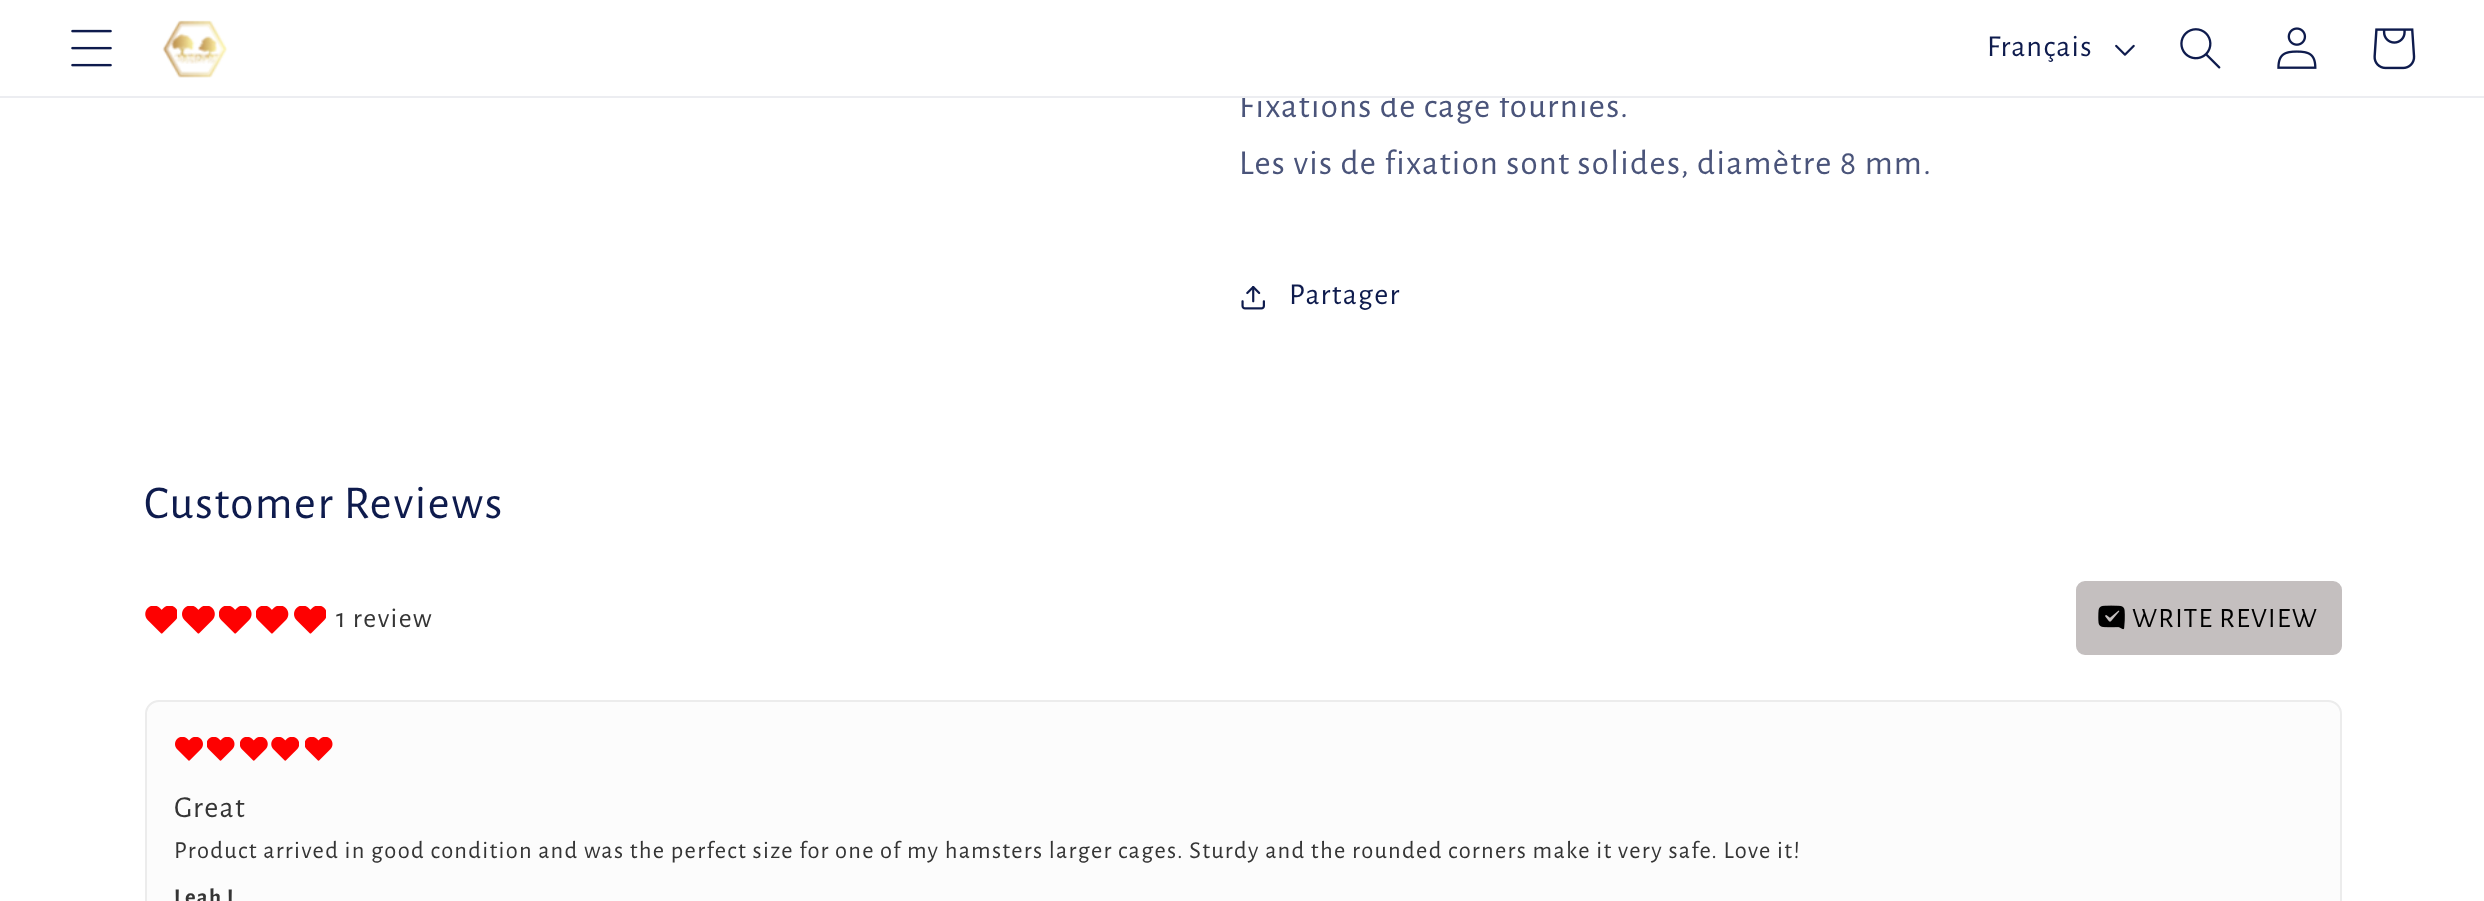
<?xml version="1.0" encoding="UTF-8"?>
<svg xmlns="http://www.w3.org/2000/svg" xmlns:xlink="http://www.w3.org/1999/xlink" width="2484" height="901">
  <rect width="100%" height="100%" fill="#ffffff" />
  <image x="71" y="29" width="41" height="38" xlink:href="image1.png" />
  <image x="162" y="20" width="66" height="58" xlink:href="image2.png" />
  <image x="2115" y="44" width="20" height="12" xlink:href="image3.png" />
  <image x="2180" y="28" width="41" height="41" xlink:href="image4.png" />
  <image x="2277" y="27" width="40" height="42" xlink:href="image5.png" />
  <image x="2373" y="28" width="43" height="42" xlink:href="image6.png" />
  <image x="1241" y="286" width="24" height="24" xlink:href="image7.png" />
  <image x="145" y="606" width="32" height="28" xlink:href="image8.png" />
  <image x="182" y="606" width="33" height="28" xlink:href="image9.png" />
  <image x="219" y="606" width="33" height="28" xlink:href="image10.png" />
  <image x="256" y="606" width="33" height="28" xlink:href="image11.png" />
  <image x="294" y="606" width="32" height="28" xlink:href="image12.png" />
  <rect x="2077" y="582" width="264" height="72" rx="8" fill="#c4bfbf" stroke="#c4bfbf" stroke-width="2" />
  <image x="2098" y="605" width="27" height="25" xlink:href="image13.png" />
  <rect x="146" y="701" width="2195" height="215" rx="13" fill="#fcfcfc" stroke="#ececec" stroke-width="2" />
  <image x="175" y="737" width="28" height="24" xlink:href="image14.png" />
  <image x="207" y="737" width="28" height="24" xlink:href="image15.png" />
  <image x="240" y="737" width="28" height="24" xlink:href="image16.png" />
  <image x="271" y="737" width="28" height="24" xlink:href="image17.png" />
  <image x="305" y="737" width="28" height="24" xlink:href="image15.png" />
  <text x="1987" y="56" style="font-family: Alegreya Sans; font-size: 30.5px; letter-spacing: 1.31px; fill: #0e1b4d">Français</text>
  <text x="1239" y="117" style="font-family: Alegreya Sans; font-size: 35px; letter-spacing: 1.31px; fill: #4a547a">Fixations de cage fournies.</text>
  <rect y="96" width="2484" height="2" fill="#ecedf1" />
  <rect x="1241" y="92" width="344" height="4" fill="#ffffff" />
  <text x="1239" y="174" style="font-family: Alegreya Sans; font-size: 35px; letter-spacing: 1.31px; fill: #4a547a">Les vis de fixation sont solides, diamètre 8 mm.</text>
  <text x="1289" y="304" style="font-family: Alegreya Sans; font-size: 30.5px; letter-spacing: 1.31px; fill: #0e1b4d">Partager</text>
  <text x="144" y="518" style="font-family: Alegreya Sans; font-size: 47.25px; letter-spacing: 1.6px; fill: #0e1b4d">Customer Reviews</text>
  <text x="336" y="627" style="font-family: Alegreya Sans; font-size: 28px; letter-spacing: 1.31px; fill: #353535">1 review</text>
  <text x="2132" y="627" style="font-family: Alegreya Sans; font-size: 28px; letter-spacing: 1.31px; fill: #000000">WRITE REVIEW</text>
  <text x="174" y="817" style="font-family: Alegreya Sans; font-size: 30.5px; letter-spacing: 1.31px; fill: #353535">Great</text>
  <text x="174" y="858" style="font-family: Alegreya Sans; font-size: 24.5px; letter-spacing: 1.31px; fill: #353535">Product arrived in good condition and was the perfect size for one of my hamsters larger cages. Sturdy and the rounded corners make it very safe. Love it!</text>
  <text x="174" y="904" style="font-family: Alegreya Sans; font-size: 22.5px; font-weight: bold; letter-spacing: 1.31px; fill: #353535">Leah L</text>
</svg>
